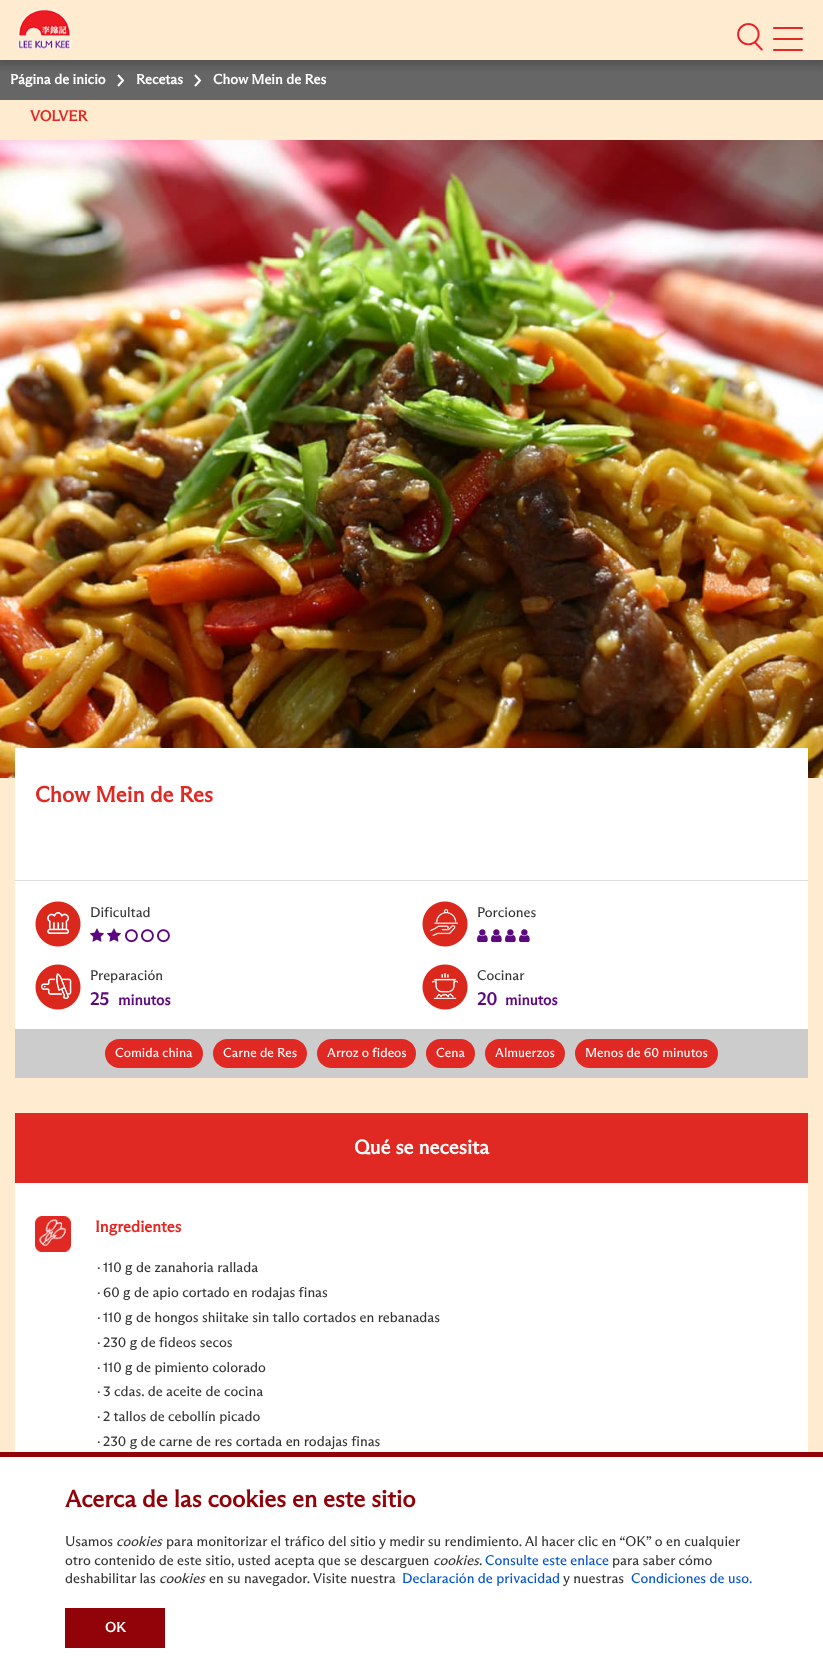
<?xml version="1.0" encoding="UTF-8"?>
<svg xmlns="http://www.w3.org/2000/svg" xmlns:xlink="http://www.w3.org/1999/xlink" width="823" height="1678">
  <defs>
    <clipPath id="clip1"><rect x="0" y="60" width="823" height="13" /></clipPath>
  </defs>
  <rect width="100%" height="100%" fill="#ffebcf" />
  <rect y="60" width="823" height="40" fill="#666666" />
  <path d="M 118 75 l 5 5.5 l -5 5.5" fill="none" stroke="#ffffff" stroke-width="2" />
  <path d="M 195 75 l 5 5.5 l -5 5.5" fill="none" stroke="#ffffff" stroke-width="2" />
  <g clip-path="url(#clip1)">
    <rect x="-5" y="-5" width="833" height="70" fill="#333333" fill-opacity="0.4" filter="blur(5px)" />
  </g>
  <image x="17" y="9" width="55" height="40" xlink:href="image1.png" />
  <image x="737" y="23" width="26" height="28" xlink:href="image2.png" />
  <rect x="773" y="38" width="30" height="2" rx="1" fill="#e02923" />
  <rect x="773" y="27" width="30" height="2" rx="1" fill="#e02923" />
  <rect x="773" y="49" width="30" height="2" rx="1" fill="#e02923" />
  <image x="0" y="140" width="823" height="638" xlink:href="image3.png" />
  <rect x="15" y="748" width="793" height="132" fill="#ffffff" />
  <rect x="15" y="880" width="793" height="1" fill="#dddddd" />
  <rect x="15" y="881" width="793" height="148" fill="#ffffff" />
  <image x="35" y="901" width="46" height="46" xlink:href="image4.png" />
  <image x="90" y="928" width="14" height="14" xlink:href="image5.png" />
  <image x="107" y="928" width="14" height="14" xlink:href="image5.png" />
  <image x="125" y="929" width="13" height="14" xlink:href="image6.png" />
  <image x="141" y="929" width="13" height="14" xlink:href="image6.png" />
  <image x="157" y="929" width="13" height="14" xlink:href="image6.png" />
  <image x="422" y="901" width="46" height="46" xlink:href="image7.png" />
  <image x="477" y="929" width="11" height="14" xlink:href="image8.png" />
  <image x="491" y="929" width="11" height="14" xlink:href="image8.png" />
  <image x="505" y="929" width="11" height="14" xlink:href="image8.png" />
  <image x="519" y="929" width="11" height="14" xlink:href="image8.png" />
  <image x="35" y="964" width="46" height="46" xlink:href="image9.png" />
  <image x="422" y="964" width="46" height="46" xlink:href="image10.png" />
  <rect x="15" y="1029" width="793" height="49" fill="#cccccc" />
  <rect x="105" y="1039" width="98" height="29" rx="14.5" fill="#e02923" />
  <rect x="213" y="1039" width="94" height="29" rx="14.5" fill="#e02923" />
  <rect x="317" y="1039" width="99" height="29" rx="14.5" fill="#e02923" />
  <rect x="426" y="1039" width="49" height="29" rx="14.5" fill="#e02923" />
  <rect x="485" y="1039" width="80" height="29" rx="14.5" fill="#e02923" />
  <rect x="575" y="1039" width="143" height="29" rx="14.5" fill="#e02923" />
  <rect x="15" y="1113" width="793" height="70" fill="#e02923" />
  <rect x="15" y="1183" width="793" height="269" fill="#ffffff" />
  <image x="35" y="1216" width="36" height="36" xlink:href="image11.png" />
  <rect y="1457" width="823" height="221" fill="#ffffff" />
  <rect y="1452" width="823" height="5" fill="#910209" />
  <rect x="65" y="1608" width="100" height="40" fill="#910209" />
  <text x="10" y="84" style="font-family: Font; font-size: 14px; font-weight: bold; fill: #ffffff">Página de inicio</text>
  <text x="136" y="84" style="font-family: Font; font-size: 14px; font-weight: bold; fill: #ffffff">Recetas</text>
  <text x="213" y="84" style="font-family: Font; font-size: 14px; font-weight: bold; fill: #ffffff">Chow Mein de Res</text>
  <text x="30" y="121" style="font-family: Font; font-size: 15px; font-weight: bold; fill: #e02923">VOLVER</text>
  <text x="35" y="802" style="font-family: Font; font-size: 22px; font-weight: bold; fill: #e02923">Chow Mein de Res</text>
  <text x="90" y="917" style="font-family: Font; font-size: 14px; fill: #333333">Dificultad</text>
  <text x="477" y="917" style="font-family: Font; font-size: 14px; fill: #333333">Porciones</text>
  <text x="90" y="980" style="font-family: Font; font-size: 14px; fill: #333333">Preparación</text>
  <text x="90" y="1005" style="font-family: Font; font-size: 18px; font-weight: bold; fill: #5c087e">25</text>
  <text x="118" y="1005" style="font-family: Font; font-size: 15px; font-weight: bold; fill: #5c087e">minutos</text>
  <text x="477" y="980" style="font-family: Font; font-size: 14px; fill: #333333">Cocinar</text>
  <text x="477" y="1005" style="font-family: Font; font-size: 18px; font-weight: bold; fill: #5c087e">20</text>
  <text x="505" y="1005" style="font-family: Font; font-size: 15px; font-weight: bold; fill: #5c087e">minutos</text>
  <text x="115" y="1057" style="font-family: Font; font-size: 13px; fill: #ffffff">Comida china</text>
  <text x="223" y="1057" style="font-family: Font; font-size: 13px; fill: #ffffff">Carne de Res</text>
  <text x="327" y="1057" style="font-family: Font; font-size: 13px; fill: #ffffff">Arroz o fideos</text>
  <text x="436" y="1057" style="font-family: Font; font-size: 13px; fill: #ffffff">Cena</text>
  <text x="495" y="1057" style="font-family: Font; font-size: 13px; fill: #ffffff">Almuerzos</text>
  <text x="585" y="1057" style="font-family: Font; font-size: 13px; fill: #ffffff">Menos de 60 minutos</text>
  <text x="354" y="1154" style="font-family: Font; font-size: 20px; font-weight: bold; fill: #ffffff">Qué se necesita</text>
  <text x="95" y="1232" style="font-family: Font; font-size: 16px; font-weight: bold; fill: #e02923">Ingredientes</text>
  <text x="97" y="1272" style="font-family: Font; font-size: 14px; fill: #333333">·</text>
  <text x="103" y="1272" style="font-family: Font; font-size: 14px; fill: #333333">110 g de zanahoria rallada</text>
  <text x="97" y="1297" style="font-family: Font; font-size: 14px; fill: #333333">·</text>
  <text x="103" y="1297" style="font-family: Font; font-size: 14px; fill: #333333">60 g de apio cortado en rodajas finas</text>
  <text x="97" y="1322" style="font-family: Font; font-size: 14px; fill: #333333">·</text>
  <text x="103" y="1322" style="font-family: Font; font-size: 14px; fill: #333333">110 g de hongos shiitake sin tallo cortados en rebanadas</text>
  <text x="97" y="1347" style="font-family: Font; font-size: 14px; fill: #333333">·</text>
  <text x="103" y="1347" style="font-family: Font; font-size: 14px; fill: #333333">230 g de fideos secos</text>
  <text x="97" y="1372" style="font-family: Font; font-size: 14px; fill: #333333">·</text>
  <text x="103" y="1372" style="font-family: Font; font-size: 14px; fill: #333333">110 g de pimiento colorado</text>
  <text x="97" y="1396" style="font-family: Font; font-size: 14px; fill: #333333">·</text>
  <text x="103" y="1396" style="font-family: Font; font-size: 14px; fill: #333333">3 cdas. de aceite de cocina</text>
  <text x="97" y="1421" style="font-family: Font; font-size: 14px; fill: #333333">·</text>
  <text x="103" y="1421" style="font-family: Font; font-size: 14px; fill: #333333">2 tallos de cebollín picado</text>
  <text x="97" y="1446" style="font-family: Font; font-size: 14px; fill: #333333">·</text>
  <text x="103" y="1446" style="font-family: Font; font-size: 14px; fill: #333333">230 g de carne de res cortada en rodajas finas</text>
  <text x="65" y="1507" style="font-family: Font; font-size: 24px; font-weight: bold; fill: #910209">Acerca de las cookies en este sitio</text>
  <text x="65" y="1546" style="font-family: Font; font-size: 14px; fill: #333333">Usamos</text>
  <text x="116" y="1546" style="font-family: Font; font-size: 14px; font-style: italic; fill: #333333">cookies</text>
  <text x="166" y="1546" style="font-family: Font; font-size: 14px; fill: #333333">para monitorizar el tráfico del sitio y medir su rendimiento. Al hacer clic en “OK” o en cualquier</text>
  <text x="65" y="1565" style="font-family: Font; font-size: 14px; fill: #333333">otro contenido de este sitio, usted acepta que se descarguen</text>
  <text x="433" y="1565" style="font-family: Font; font-size: 14px; font-style: italic; fill: #333333">cookies</text>
  <text x="479" y="1565" style="font-family: Font; font-size: 14px; fill: #333333">.</text>
  <text x="485" y="1565" style="font-family: Font; font-size: 14px; fill: #0052cc">Consulte este enlace</text>
  <text x="612" y="1565" style="font-family: Font; font-size: 14px; fill: #333333">para saber cómo</text>
  <text x="65" y="1583" style="font-family: Font; font-size: 14px; fill: #333333">deshabilitar las</text>
  <text x="159" y="1583" style="font-family: Font; font-size: 14px; font-style: italic; fill: #333333">cookies</text>
  <text x="209" y="1583" style="font-family: Font; font-size: 14px; fill: #333333">en su navegador. Visite nuestra</text>
  <text x="402" y="1583" style="font-family: Font; font-size: 14px; fill: #0052cc">Declaración de privacidad</text>
  <text x="563" y="1583" style="font-family: Font; font-size: 14px; fill: #333333">y nuestras</text>
  <text x="631" y="1583" style="font-family: Font; font-size: 14px; fill: #0052cc">Condiciones de uso.</text>
  <text x="105" y="1632" style="font-family: Font; font-size: 14px; font-weight: bold; fill: #ffffff">OK</text>
</svg>
